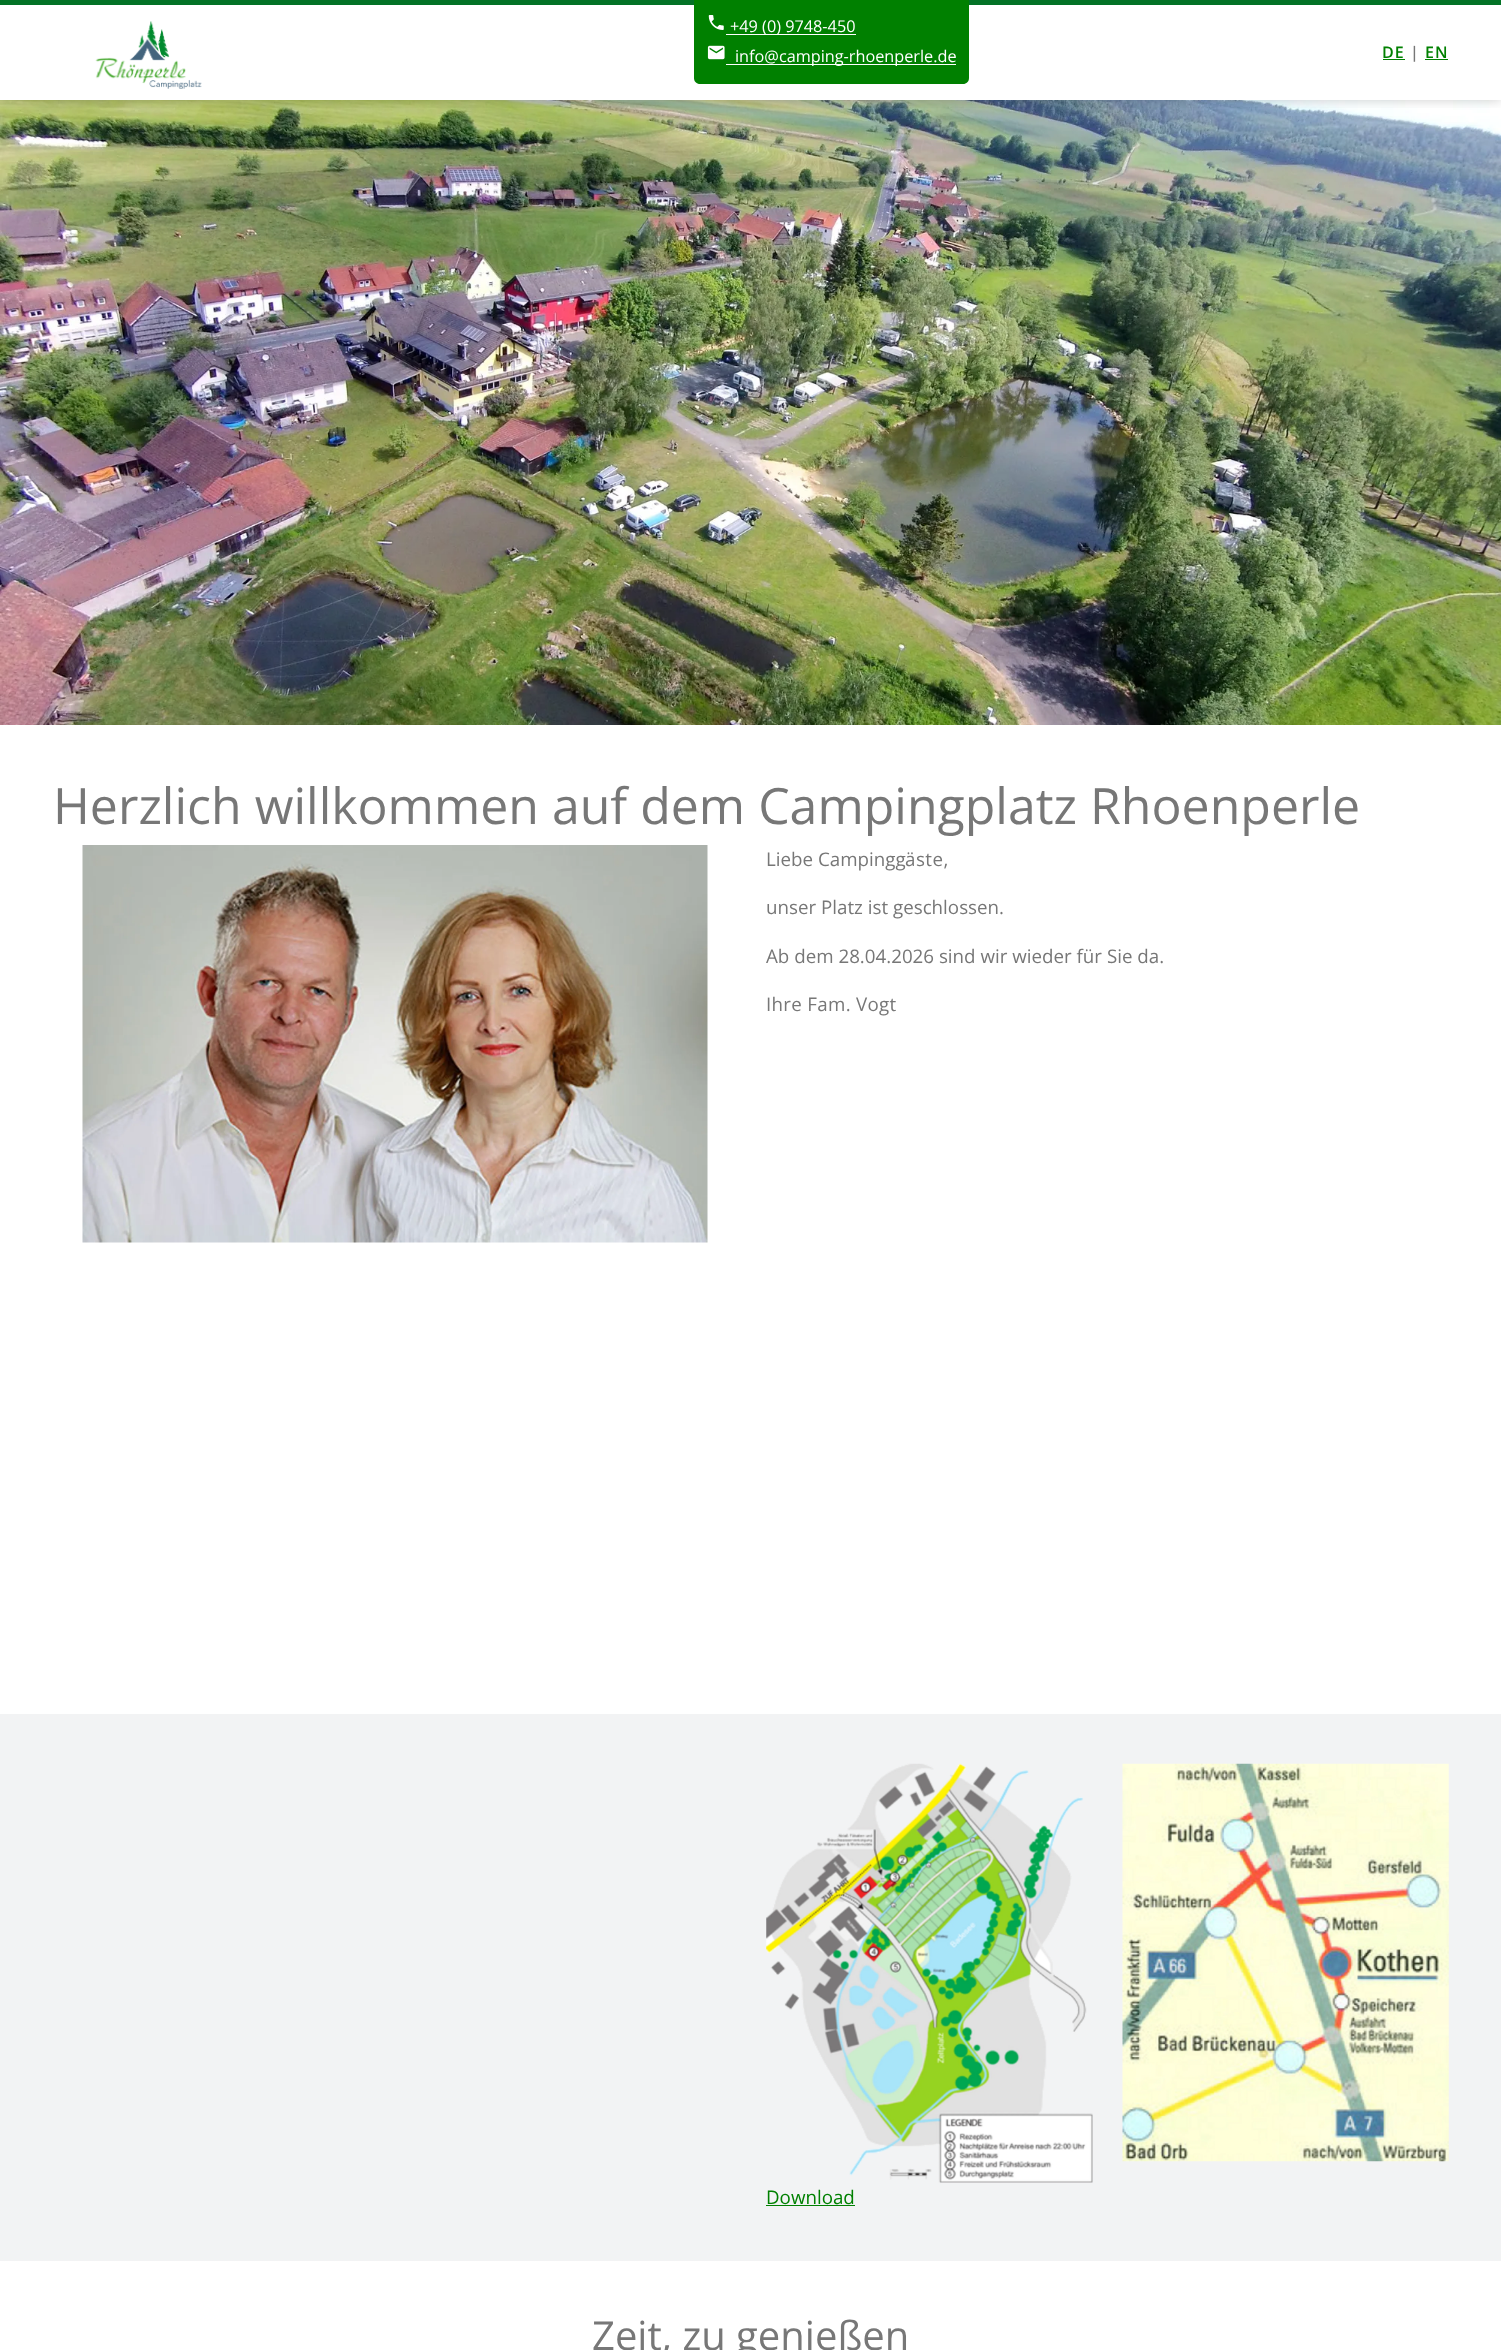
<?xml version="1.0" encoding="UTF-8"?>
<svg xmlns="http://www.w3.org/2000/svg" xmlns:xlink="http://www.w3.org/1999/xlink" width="1501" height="2350">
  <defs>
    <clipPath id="clip1"><rect x="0" y="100" width="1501" height="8" /></clipPath>
  </defs>
  <rect width="100%" height="100%" fill="#ffffff" />
  <image x="0" y="100" width="1501" height="625" xlink:href="image4.png" />
  <g clip-path="url(#clip1)">
    <rect width="1501" height="100" fill="#000000" fill-opacity="0.2" filter="blur(6px)" />
  </g>
  <rect width="1501" height="5" fill="#037226" />
  <image x="95" y="21" width="107" height="68" xlink:href="image1.png" />
  <path d="M 694 -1 h 275 v 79 c 0 3.5 -2.5 6 -6 6 h -263 c -3.5 0 -6 -2.5 -6 -6 z" fill="#008000" />
  <image x="708" y="15" width="16" height="15" xlink:href="image2.png" />
  <rect x="726" y="34" width="130" height="1" fill="#ffffff" />
  <image x="707" y="45" width="18" height="15" xlink:href="image3.png" />
  <rect x="726" y="64" width="230" height="1" fill="#ffffff" />
  <rect x="1383" y="59" width="22" height="1" fill="#008000" />
  <rect x="1425" y="59" width="23" height="1" fill="#008000" />
  <image x="82" y="845" width="626" height="398" xlink:href="image5.png" />
  <rect y="1714" width="1501" height="547" fill="#f2f3f4" />
  <image x="1122" y="1763" width="327" height="399" xlink:href="image6.png" />
  <image x="766" y="1763" width="327" height="420" xlink:href="image7.png" />
  <rect x="766" y="2205" width="89" height="1" fill="#008000" />
  <text x="730" y="32" style="font-family: Open Sans; font-size: 16.25px; fill: #ffffff">+49 (0) 9748-450</text>
  <text x="735" y="62" style="font-family: Open Sans; font-size: 16.25px; fill: #ffffff">info@camping-rhoenperle.de</text>
  <text x="1382" y="58" style="font-family: Open Sans; font-size: 16px; font-weight: 600; letter-spacing: 1px; fill: #008000">DE</text>
  <text x="1410" y="58" style="font-family: Open Sans; font-size: 16px; font-weight: 600; letter-spacing: 1px; fill: #777777">|</text>
  <text x="1425" y="58" style="font-family: Open Sans; font-size: 16px; font-weight: 600; letter-spacing: 1px; fill: #008000">EN</text>
  <text x="53" y="824" style="font-family: Open Sans; font-size: 50px; fill: #777777">Herzlich willkommen auf dem Campingplatz Rhoenperle</text>
  <text x="766" y="866" style="font-family: Open Sans; font-size: 18.75px; fill: #777777">Liebe Campingg</text>
  <text x="905" y="866" style="font-family: Open Sans; font-size: 18.75px; letter-spacing: 0.5px; fill: #777777">äste,</text>
  <text x="766" y="914" style="font-family: Open Sans; font-size: 18.75px; fill: #777777">unser Platz ist geschlossen.</text>
  <text x="766" y="963" style="font-family: Open Sans; font-size: 18.75px; fill: #777777">Ab dem 28.04.2026 sind wir wieder für Sie da.</text>
  <text x="766" y="1011" style="font-family: Open Sans; font-size: 18.75px; letter-spacing: 0.3px; fill: #777777">Ihre Fam. Vogt</text>
  <text x="766" y="2204" style="font-family: Open Sans; font-size: 18.75px; fill: #008000">Download</text>
  <text x="592" y="2350" style="font-family: Open Sans; font-size: 40px; fill: #777777">Zeit, zu genießen</text>
</svg>
